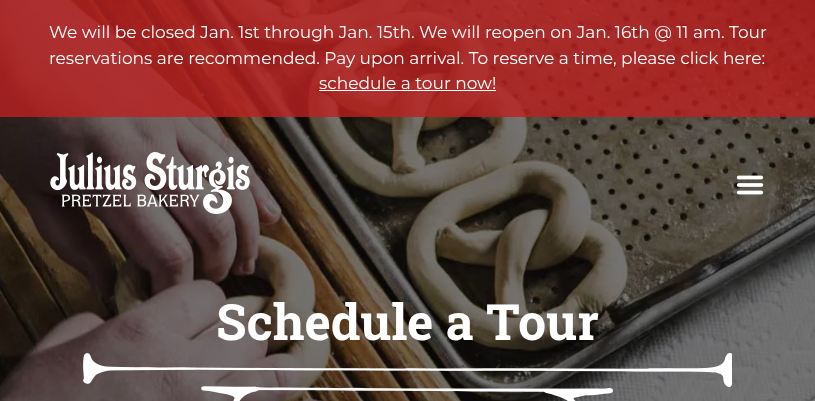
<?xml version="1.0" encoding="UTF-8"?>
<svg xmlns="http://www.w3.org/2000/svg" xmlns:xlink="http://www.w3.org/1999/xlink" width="815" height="401">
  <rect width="100%" height="100%" fill="#ffffff" />
  <image x="0" y="0" width="815" height="401" xlink:href="image1.png" />
  <rect width="815" height="117" fill="#bd2121" fill-opacity="0.8" />
  <rect x="319" y="90" width="177" height="1" fill="#ffffff" />
  <image x="50" y="152" width="200" height="62" xlink:href="image2.png" />
  <image x="736" y="175" width="28" height="20" xlink:href="image3.png" />
  <image x="83" y="353" width="649" height="48" xlink:href="image4.png" />
  <text x="49" y="38" style="font-family: Montserrat; font-size: 17px; fill: #ffffff">We will be closed Jan. 1st through Jan. 15th. We will reopen on Jan. 16th @ 11 am. Tour</text>
  <text x="49" y="64" style="font-family: Montserrat; font-size: 17px; fill: #ffffff">reservations are recommended. Pay upon arrival. To reserve a time, please click here:</text>
  <text x="319" y="89" style="font-family: Montserrat; font-size: 17px; fill: #ffffff">schedule a tour now!</text>
  <text x="216" y="340" style="font-family: Roboto Slab; font-size: 50px; font-weight: bold; fill: #ffffff">Schedule a Tour</text>
</svg>
